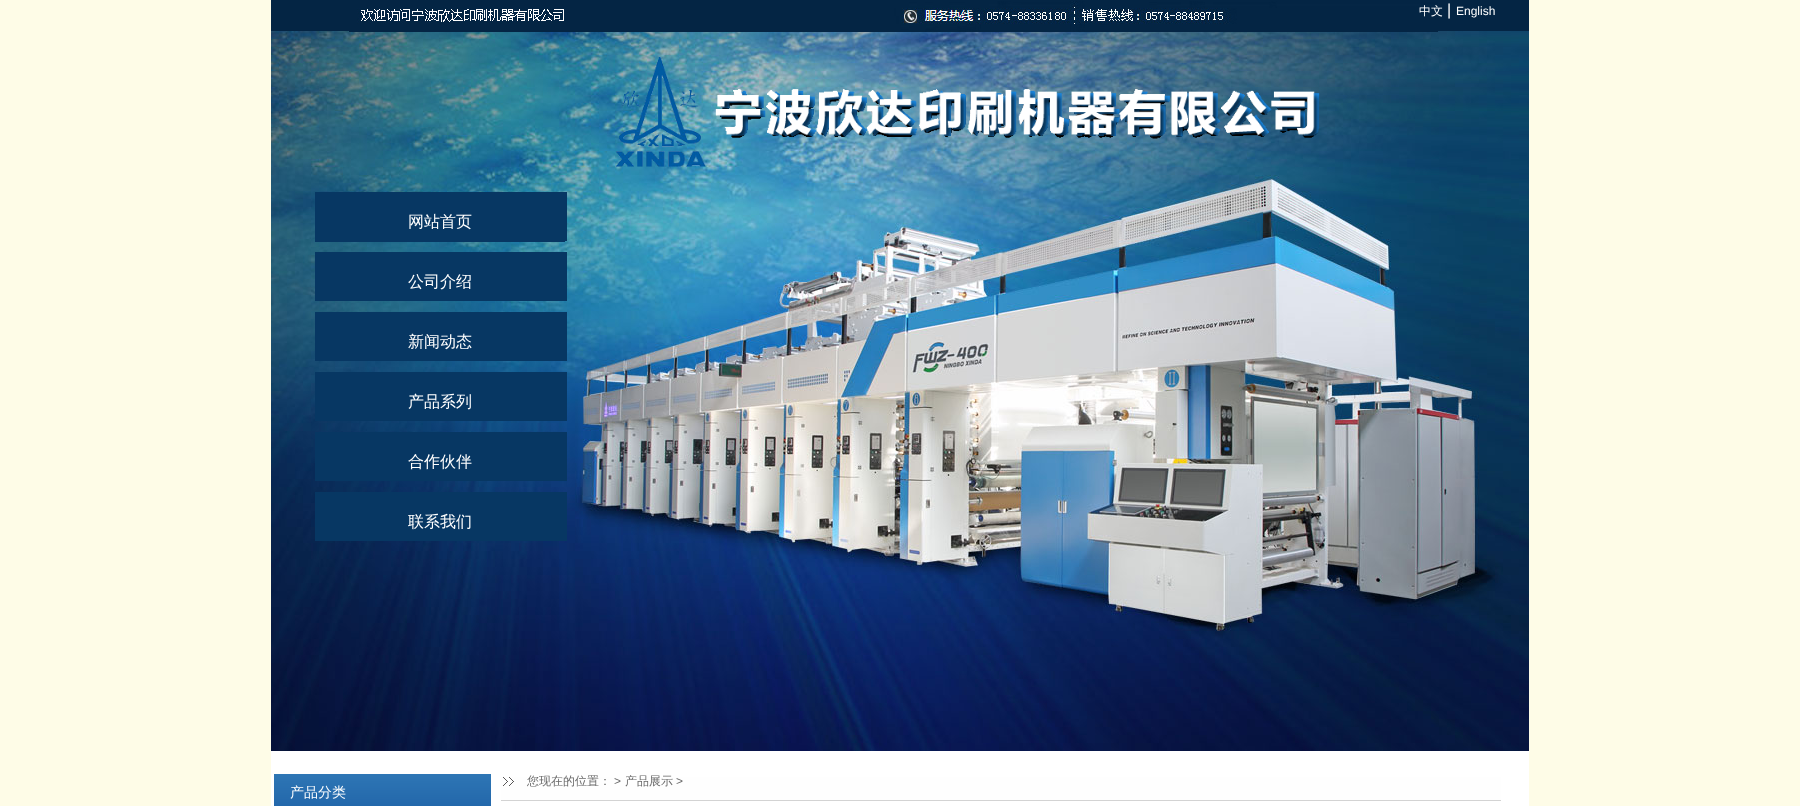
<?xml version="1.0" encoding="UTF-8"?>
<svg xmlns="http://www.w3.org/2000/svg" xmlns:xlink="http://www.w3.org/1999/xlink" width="1800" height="806">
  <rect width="100%" height="100%" fill="#fefce7" />
  <rect x="271" width="1258" height="31" fill="#042544" />
  <image x="271" y="31" width="1258" height="720" xlink:href="image2.png" />
  <image x="349" y="1" width="1089" height="31" xlink:href="image1.png" />
  <image x="616" y="57" width="704" height="110" xlink:href="image3.png" />
  <rect x="315" y="192" width="250" height="50" fill="#073763" />
  <rect x="565" y="192" width="2" height="49" fill="#073763" />
  <rect x="315" y="252" width="252" height="49" fill="#073763" />
  <rect x="315" y="312" width="252" height="49" fill="#073763" />
  <rect x="315" y="372" width="252" height="49" fill="#073763" />
  <rect x="315" y="432" width="252" height="49" fill="#073763" />
  <rect x="315" y="492" width="252" height="49" fill="#073763" />
  <rect x="271" y="751" width="1258" height="55" fill="#ffffff" />
  <image x="501" y="777" width="1000" height="24" xlink:href="image4.png" />
  <image x="274" y="774" width="217" height="32" xlink:href="image5.png" />
  <text x="1419" y="15" style="font-family: WenQuanYi Zen Hei; font-size: 12px; font-weight: 500; fill: #ffffff">中文</text>
  <text x="1447" y="15" style="font-family: Liberation Sans; font-size: 16px; fill: #ffffff">|</text>
  <text x="1456" y="15" style="font-family: Liberation Sans; font-size: 12px; fill: #ffffff">English</text>
  <text x="408" y="227" style="font-family: WenQuanYi Zen Hei; font-size: 16px; font-weight: 500; fill: #ffffff">网站首页</text>
  <text x="408" y="287" style="font-family: WenQuanYi Zen Hei; font-size: 16px; font-weight: 500; fill: #ffffff">公司介绍</text>
  <text x="408" y="347" style="font-family: WenQuanYi Zen Hei; font-size: 16px; font-weight: 500; fill: #ffffff">新闻动态</text>
  <text x="408" y="407" style="font-family: WenQuanYi Zen Hei; font-size: 16px; font-weight: 500; fill: #ffffff">产品系列</text>
  <text x="408" y="467" style="font-family: WenQuanYi Zen Hei; font-size: 16px; font-weight: 500; fill: #ffffff">合作伙伴</text>
  <text x="408" y="527" style="font-family: WenQuanYi Zen Hei; font-size: 16px; font-weight: 500; fill: #ffffff">联系我们</text>
  <text x="527" y="785" style="font-family: WenQuanYi Zen Hei; font-size: 12px; font-weight: 500; fill: #696969">您现在的位置：</text>
  <text x="614" y="785" style="font-family: Liberation Sans; font-size: 12px; fill: #696969">&gt;</text>
  <text x="625" y="785" style="font-family: WenQuanYi Zen Hei; font-size: 12px; font-weight: 500; fill: #696969">产品展示</text>
  <text x="676" y="785" style="font-family: Liberation Sans; font-size: 12px; fill: #696969">&gt;</text>
  <text x="290" y="797" style="font-family: WenQuanYi Zen Hei; font-size: 14px; font-weight: 500; fill: #ffffff">产品分类</text>
</svg>
